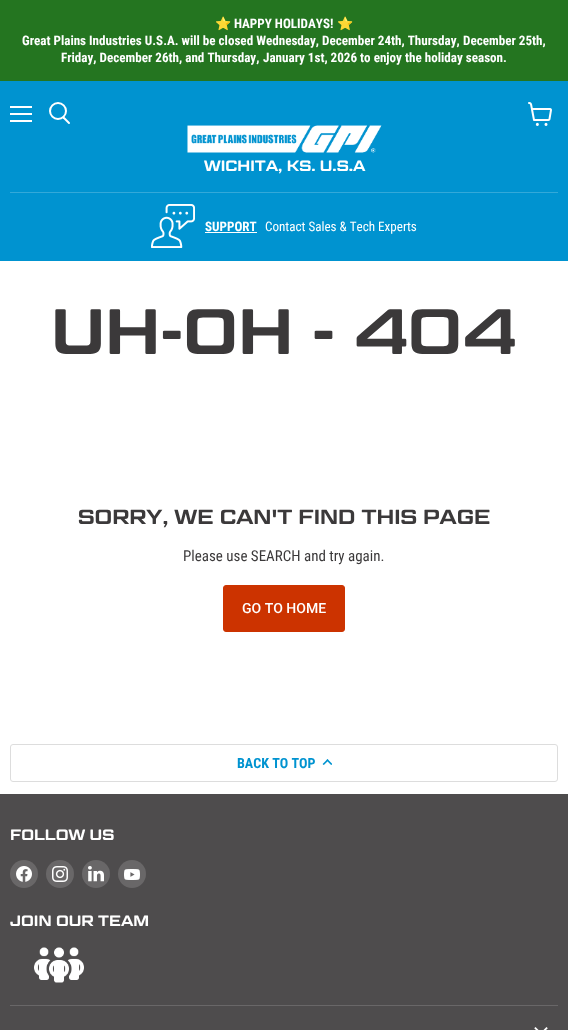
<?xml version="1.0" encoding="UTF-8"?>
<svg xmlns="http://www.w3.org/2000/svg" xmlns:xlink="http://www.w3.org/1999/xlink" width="568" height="1030">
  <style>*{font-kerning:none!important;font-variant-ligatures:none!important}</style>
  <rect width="100%" height="100%" fill="#ffffff" />
  <rect width="568" height="81" fill="#247520" />
  <rect y="81" width="568" height="180" fill="#0093d0" />
  <rect x="10" y="106" width="22" height="2" fill="#ffffff" />
  <rect x="10" y="113" width="22" height="2" fill="#ffffff" />
  <rect x="10" y="120" width="22" height="2" fill="#ffffff" />
  <path d="M 69 123 l -5.5 -5.5" fill="none" stroke="#ffffff" stroke-width="2" stroke-linecap="round" />
  <circle cx="58" cy="111" r="8" fill="none" stroke="#ffffff" stroke-width="2" />
  <image x="528" y="102" width="24" height="24" xlink:href="image1.png" />
  <image x="187" y="125" width="195" height="28" xlink:href="image2.png" />
  <rect x="10" y="192" width="548" height="1" fill="#33a9d9" />
  <image x="151" y="204" width="44" height="44" xlink:href="image3.png" />
  <rect x="205" y="232" width="52" height="1" fill="#ffffff" />
  <rect x="223.5" y="585.5" width="121" height="46" rx="2.5" fill="#cc3300" stroke="#cc3300" />
  <rect x="10.5" y="744.5" width="547" height="37" rx="2.5" fill="none" stroke="#dddddd" />
  <image x="322" y="759" width="10" height="6" xlink:href="image4.png" />
  <rect y="794" width="568" height="236" fill="#4e4c4d" />
  <rect x="10" y="1005" width="548" height="1" fill="#696768" />
  <circle cx="24" cy="874" r="14" fill="#696768" />
  <image x="16" y="866" width="16" height="16" xlink:href="image5.png" />
  <circle cx="60" cy="874" r="14" fill="#696768" />
  <image x="52" y="866" width="16" height="16" xlink:href="image6.png" />
  <circle cx="96" cy="874" r="14" fill="#696768" />
  <image x="88" y="866" width="16" height="16" xlink:href="image7.png" />
  <circle cx="132" cy="874" r="14" fill="#696768" />
  <image x="124" y="869" width="16" height="11" xlink:href="image8.png" />
  <image x="34" y="947" width="50" height="36" xlink:href="image9.png" />
  <image x="534" y="1027" width="14" height="3" xlink:href="image10.png" />
  <text x="215" y="28" style="font-family: Noto Color Emoji; font-size: 13.1px; font-weight: bold; fill: #ffffff">⭐</text>
  <text x="234" y="28" style="font-family: Roboto Condensed; font-size: 13.1px; font-weight: bold; fill: #ffffff">HAPPY HOLIDAYS!</text>
  <text x="337" y="28" style="font-family: Noto Color Emoji; font-size: 13.1px; font-weight: bold; fill: #ffffff">⭐</text>
  <text x="22" y="45" style="font-family: Roboto Condensed; font-size: 13.1px; font-weight: bold; fill: #ffffff">Great Plains Industries U.S.A. will be closed Wednesday, December 24th, Thursday,</text>
  <text x="463" y="45" style="font-family: Roboto Condensed; font-size: 13.1px; font-weight: bold; fill: #ffffff">December 25th,</text>
  <text x="61" y="62" style="font-family: Roboto Condensed; font-size: 13.1px; font-weight: bold; fill: #ffffff">Friday, December 26th, and Thursday,</text>
  <text x="263" y="62" style="font-family: Roboto Condensed; font-size: 13.1px; font-weight: bold; fill: #ffffff">January 1st, 2026 to enjoy the holiday season.</text>
  <text x="204" y="171" style="font-family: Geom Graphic; font-size: 14.9px; font-weight: 600; fill: #ffffff">WICHITA, KS. U.S.A</text>
  <text x="205" y="231" style="font-family: Roboto Condensed; font-size: 13.1px; font-weight: bold; fill: #ffffff">SUPPORT</text>
  <text x="265" y="231" style="font-family: Roboto Condensed; font-size: 13.1px; fill: #ffffff">Contact Sales &amp; Tech Experts</text>
  <text x="51" y="354" style="font-family: Geom Graphic; font-size: 64px; font-weight: 600; fill: #3b393a">UH-OH - 404</text>
  <text x="78" y="524" style="font-family: Geom Graphic; font-size: 20.5px; font-weight: 600; fill: #3b393a">SORRY, WE CAN'T FIND THIS PAGE</text>
  <text x="183" y="561" style="font-family: Roboto Condensed; font-size: 15px; fill: #3b393a">Please use SEARCH and try again.</text>
  <text x="242" y="613" style="font-family: Roboto; font-size: 14px; font-weight: 500; fill: #ffffff">GO TO HOME</text>
  <text x="237" y="768" style="font-family: Roboto Condensed; font-size: 14px; font-weight: bold; fill: #0093d0">BACK TO TOP</text>
  <text x="10" y="840" style="font-family: Geom Graphic; font-size: 14.9px; font-weight: 600; fill: #ffffff">FOLLOW US</text>
  <text x="10" y="926" style="font-family: Geom Graphic; font-size: 14.9px; font-weight: 600; fill: #ffffff">JOIN OUR TEAM</text>
</svg>
